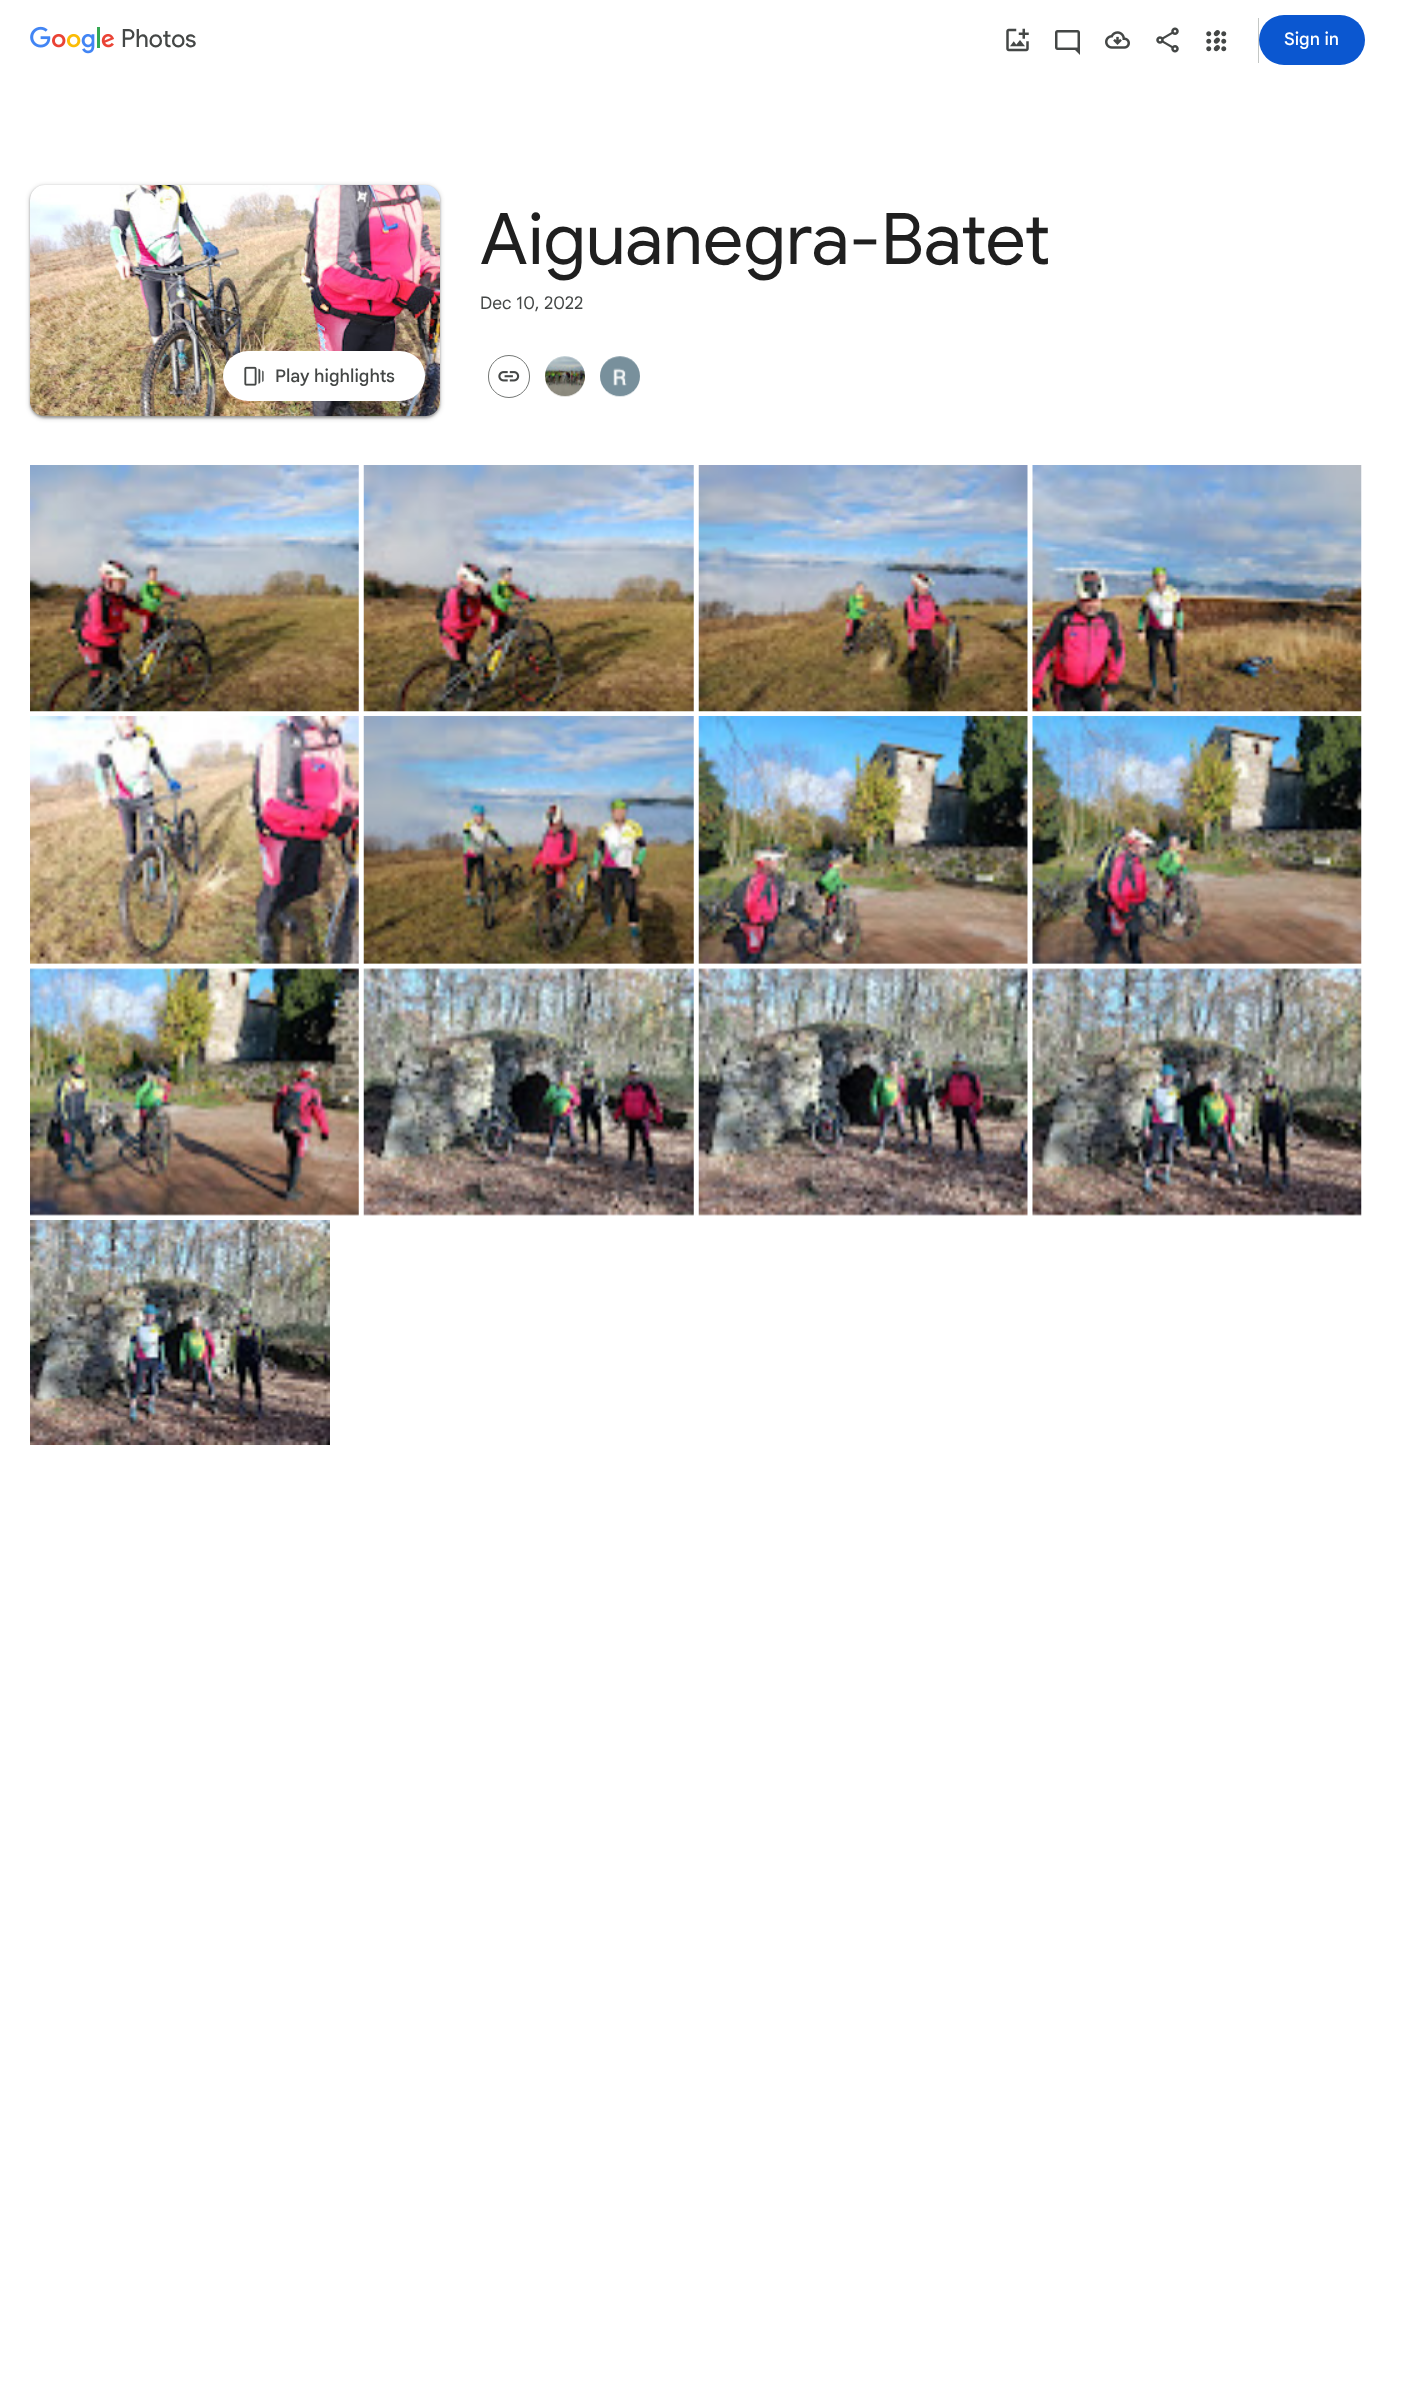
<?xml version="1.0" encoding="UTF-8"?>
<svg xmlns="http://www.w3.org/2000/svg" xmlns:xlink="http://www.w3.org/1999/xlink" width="1409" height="2406">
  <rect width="100%" height="100%" fill="#ffffff" />
  <image x="30" y="26" width="84" height="28" xlink:href="image1.png" />
  <image x="1006" y="28" width="23" height="24" xlink:href="image2.png" />
  <image x="1055" y="30" width="25" height="25" xlink:href="image3.png" />
  <image x="1105" y="31" width="25" height="18" xlink:href="image4.png" />
  <image x="1156" y="27" width="23" height="26" xlink:href="image5.png" />
  <image x="1215" y="30" width="5" height="20" xlink:href="image6.png" />
  <rect x="1258" y="18" width="1" height="45" fill="#c4c7c5" />
  <rect x="488.5" y="355.5" width="41" height="42" rx="20.5" fill="none" stroke="#747775" />
  <image x="498" y="371" width="22" height="11" xlink:href="image7.png" />
  <image x="545" y="356" width="40" height="41" xlink:href="image8.png" />
  <image x="600" y="356" width="40" height="41" xlink:href="image9.png" />
  <rect x="29" y="185" width="412" height="234" rx="16" fill="#000000" fill-opacity="0.15" filter="blur(2px)" />
  <rect x="30" y="186" width="410" height="232" rx="15" fill="#000000" fill-opacity="0.3" filter="blur(1px)" />
  <image x="30" y="185" width="410" height="232" xlink:href="image10.png" />
  <rect x="223" y="351" width="202" height="50" rx="25" fill="#ffffff" />
  <image x="244" y="366" width="20" height="20" xlink:href="image11.png" />
  <image x="30" y="465" width="329" height="247" xlink:href="image12.png" />
  <image x="363" y="465" width="331" height="247" xlink:href="image13.png" />
  <image x="698" y="465" width="330" height="247" xlink:href="image14.png" />
  <image x="1032" y="465" width="330" height="247" xlink:href="image15.png" />
  <image x="30" y="716" width="329" height="248" xlink:href="image16.png" />
  <image x="363" y="716" width="331" height="248" xlink:href="image17.png" />
  <image x="698" y="716" width="330" height="248" xlink:href="image18.png" />
  <image x="1032" y="716" width="330" height="248" xlink:href="image19.png" />
  <image x="30" y="968" width="329" height="248" xlink:href="image20.png" />
  <image x="363" y="968" width="331" height="248" xlink:href="image21.png" />
  <image x="698" y="968" width="330" height="248" xlink:href="image22.png" />
  <image x="1032" y="968" width="330" height="248" xlink:href="image23.png" />
  <image x="30" y="1220" width="300" height="225" xlink:href="image24.png" />
  <image x="1206" y="31" width="21" height="21" xlink:href="image25.png" />
  <rect x="1259" y="15" width="106" height="50" rx="25" fill="#0b57d0" />
  <text x="121" y="47" style="font-family: Product Sans; font-size: 25px; fill: #444746">Photos</text>
  <text x="480" y="264" style="font-family: Google Sans; font-size: 71.25px; fill: #1f1f1f">Aiguanegra-Batet</text>
  <text x="480" y="309" style="font-family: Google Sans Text; font-size: 17.5px; fill: #444746">Dec 10, 2022</text>
  <text x="275" y="382" style="font-family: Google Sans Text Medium; font-size: 17.5px; font-weight: 500; fill: #444746">Play highlights</text>
  <text x="1284" y="45" style="font-family: Google Sans Text Medium; font-size: 17.5px; font-weight: 500; fill: #ffffff">Sign in</text>
</svg>
